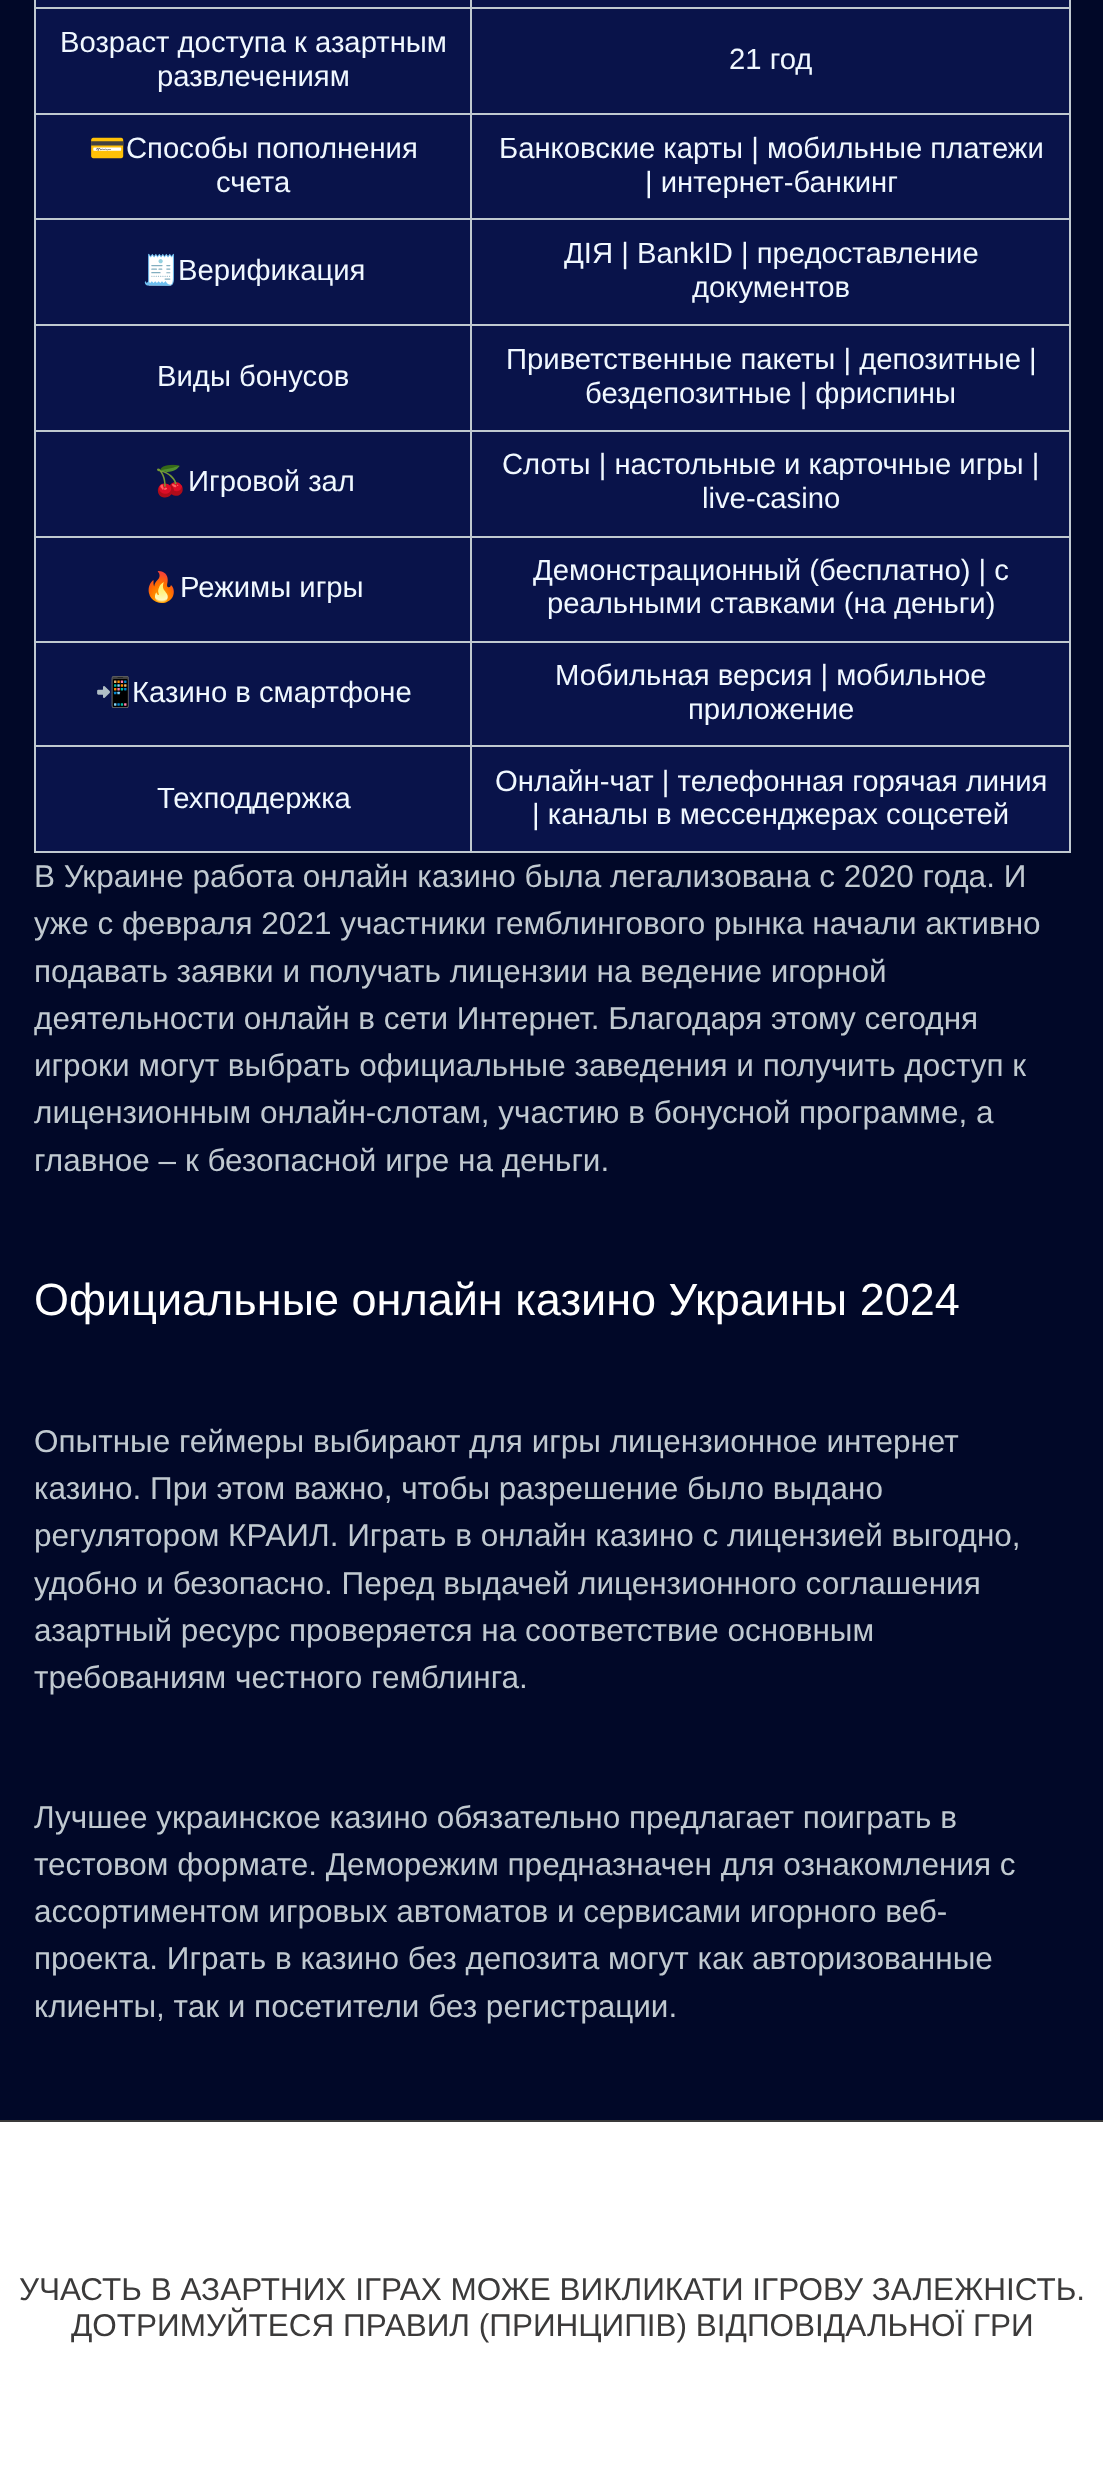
<?xml version="1.0" encoding="UTF-8"?>
<svg xmlns="http://www.w3.org/2000/svg" xmlns:xlink="http://www.w3.org/1999/xlink" width="1103" height="2491">
  <rect width="100%" height="100%" fill="#010828" />
  <rect x="36" width="1033" height="7" fill="#09134a" />
  <rect x="470" y="7" width="601" height="2" fill="#c0c9d0" />
  <rect x="36" y="9" width="1033" height="104" fill="#09134a" />
  <rect x="470" y="113" width="601" height="2" fill="#c0c9d0" />
  <rect x="36" y="115" width="1033" height="209" fill="#09134a" />
  <rect x="470" y="218" width="601" height="2" fill="#c0c9d0" />
  <rect x="470" y="324" width="601" height="2" fill="#c0c9d0" />
  <rect x="36" y="326" width="1033" height="104" fill="#09134a" />
  <rect x="470" y="430" width="601" height="2" fill="#c0c9d0" />
  <rect x="36" y="432" width="1033" height="104" fill="#09134a" />
  <rect x="470" y="536" width="601" height="2" fill="#c0c9d0" />
  <rect x="36" y="538" width="1033" height="103" fill="#09134a" />
  <rect x="36" y="643" width="1033" height="102" fill="#09134a" />
  <rect x="470" y="641" width="601" height="2" fill="#c0c9d0" />
  <rect x="470" y="745" width="601" height="2" fill="#c0c9d0" />
  <rect x="36" y="747" width="1033" height="104" fill="#09134a" />
  <rect x="1069" y="745" width="2" height="108" fill="#c0c9d0" />
  <rect x="470" y="851" width="601" height="2" fill="#c0c9d0" />
  <rect x="470" y="745" width="2" height="108" fill="#c0c9d0" />
  <rect x="34" y="745" width="439" height="2" fill="#c0c9d0" />
  <rect x="470" y="641" width="2" height="106" fill="#c0c9d0" />
  <rect x="34" y="641" width="439" height="2" fill="#c0c9d0" />
  <rect x="470" y="536" width="2" height="108" fill="#c0c9d0" />
  <rect x="34" y="536" width="439" height="2" fill="#c0c9d0" />
  <rect x="470" y="430" width="2" height="108" fill="#c0c9d0" />
  <rect x="34" y="430" width="439" height="2" fill="#c0c9d0" />
  <rect x="470" y="324" width="2" height="108" fill="#c0c9d0" />
  <rect x="34" y="324" width="439" height="2" fill="#c0c9d0" />
  <rect x="470" y="218" width="2" height="108" fill="#c0c9d0" />
  <rect x="34" y="218" width="439" height="2" fill="#c0c9d0" />
  <rect x="470" y="113" width="2" height="108" fill="#c0c9d0" />
  <rect x="34" y="113" width="439" height="2" fill="#c0c9d0" />
  <rect x="470" y="7" width="2" height="108" fill="#c0c9d0" />
  <rect x="34" y="7" width="439" height="2" fill="#c0c9d0" />
  <rect x="470" width="2" height="9" fill="#c0c9d0" />
  <rect x="34" y="851" width="439" height="2" fill="#c0c9d0" />
  <rect x="34" y="745" width="2" height="108" fill="#c0c9d0" />
  <rect x="34" y="641" width="2" height="106" fill="#c0c9d0" />
  <rect x="34" y="536" width="2" height="108" fill="#c0c9d0" />
  <rect x="34" y="430" width="2" height="108" fill="#c0c9d0" />
  <rect x="34" y="324" width="2" height="108" fill="#c0c9d0" />
  <rect x="34" y="218" width="2" height="108" fill="#c0c9d0" />
  <rect x="34" y="113" width="2" height="108" fill="#c0c9d0" />
  <rect x="34" width="2" height="115" fill="#c0c9d0" />
  <rect x="1069" y="641" width="2" height="106" fill="#c0c9d0" />
  <rect x="1069" y="536" width="2" height="108" fill="#c0c9d0" />
  <rect x="1069" y="430" width="2" height="108" fill="#c0c9d0" />
  <rect x="1069" y="324" width="2" height="108" fill="#c0c9d0" />
  <rect x="1069" y="218" width="2" height="108" fill="#c0c9d0" />
  <rect x="1069" y="113" width="2" height="108" fill="#c0c9d0" />
  <rect x="1069" width="2" height="115" fill="#c0c9d0" />
  <rect y="2122" width="1103" height="369" fill="#ffffff" />
  <rect y="2120" width="1103" height="2" fill="#3b3a3a" />
  <text x="60" y="52" style="font-family: Liberation Sans; font-size: 29.25px; fill: #f0f8ff">Возраст доступа к азартным</text>
  <text x="157" y="86" style="font-family: Liberation Sans; font-size: 29.25px; fill: #f0f8ff">развлечениям</text>
  <text x="729" y="69" style="font-family: Liberation Sans; font-size: 29.25px; fill: #f0f8ff">21 год</text>
  <text x="89" y="158" style="font-family: Noto Color Emoji; font-size: 29.25px; fill: #f0f8ff">💳</text>
  <text x="126" y="158" style="font-family: Liberation Sans; font-size: 29.25px; fill: #f0f8ff">Способы пополнения</text>
  <text x="216" y="192" style="font-family: Liberation Sans; font-size: 29.25px; fill: #f0f8ff">счета</text>
  <text x="499" y="158" style="font-family: Liberation Sans; font-size: 29.25px; fill: #f0f8ff">Банковские карты | мобильные платежи</text>
  <text x="645" y="192" style="font-family: Liberation Sans; font-size: 29.25px; fill: #f0f8ff">| интернет-банкинг</text>
  <text x="142" y="280" style="font-family: Noto Color Emoji; font-size: 29.25px; fill: #f0f8ff">🧾</text>
  <text x="178" y="280" style="font-family: Liberation Sans; font-size: 29.25px; fill: #f0f8ff">Верификация</text>
  <text x="564" y="263" style="font-family: Liberation Sans; font-size: 29.25px; fill: #f0f8ff">ДІЯ | BankID | предоставление</text>
  <text x="692" y="297" style="font-family: Liberation Sans; font-size: 29.25px; fill: #f0f8ff">документов</text>
  <text x="157" y="386" style="font-family: Liberation Sans; font-size: 29.25px; fill: #f0f8ff">Виды бонусов</text>
  <text x="506" y="369" style="font-family: Liberation Sans; font-size: 29.25px; fill: #f0f8ff">Приветственные пакеты | депозитные |</text>
  <text x="585" y="403" style="font-family: Liberation Sans; font-size: 29.25px; fill: #f0f8ff">бездепозитные | фриспины</text>
  <text x="152" y="491" style="font-family: Noto Color Emoji; font-size: 29.25px; fill: #f0f8ff">🍒</text>
  <text x="188" y="491" style="font-family: Liberation Sans; font-size: 29.25px; fill: #f0f8ff">Игровой зал</text>
  <text x="502" y="474" style="font-family: Liberation Sans; font-size: 29.25px; fill: #f0f8ff">Слоты | настольные и карточные игры |</text>
  <text x="702" y="508" style="font-family: Liberation Sans; font-size: 29.25px; fill: #f0f8ff">live-casino</text>
  <text x="143" y="597" style="font-family: Noto Color Emoji; font-size: 29.25px; fill: #f0f8ff">🔥</text>
  <text x="180" y="597" style="font-family: Liberation Sans; font-size: 29.25px; fill: #f0f8ff">Режимы игры</text>
  <text x="533" y="580" style="font-family: Liberation Sans; font-size: 29.25px; fill: #f0f8ff">Демонстрационный (бесплатно) | с</text>
  <text x="547" y="613" style="font-family: Liberation Sans; font-size: 29.25px; fill: #f0f8ff">реальными ставками (на деньги)</text>
  <text x="95" y="702" style="font-family: Noto Color Emoji; font-size: 29.25px; fill: #f0f8ff">📲</text>
  <text x="132" y="702" style="font-family: Liberation Sans; font-size: 29.25px; fill: #f0f8ff">Казино в смартфоне</text>
  <text x="555" y="685" style="font-family: Liberation Sans; font-size: 29.25px; fill: #f0f8ff">Мобильная версия | мобильное</text>
  <text x="688" y="719" style="font-family: Liberation Sans; font-size: 29.25px; fill: #f0f8ff">приложение</text>
  <text x="157" y="808" style="font-family: Liberation Sans; font-size: 29.25px; fill: #f0f8ff">Техподдержка</text>
  <text x="495" y="791" style="font-family: Liberation Sans; font-size: 29.25px; fill: #f0f8ff">Онлайн-чат | телефонная горячая линия</text>
  <text x="532" y="824" style="font-family: Liberation Sans; font-size: 29.25px; fill: #f0f8ff">| каналы в мессенджерах соцсетей</text>
  <text x="34" y="887" style="font-family: Liberation Sans; font-size: 31.5px; fill: #c0c9d0">В Украине работа онлайн казино была легализована с 2020 года. И</text>
  <text x="34" y="934" style="font-family: Liberation Sans; font-size: 31.5px; fill: #c0c9d0">уже с февраля 2021 участники гемблингового рынка начали активно</text>
  <text x="34" y="982" style="font-family: Liberation Sans; font-size: 31.5px; fill: #c0c9d0">подавать заявки и получать лицензии на ведение игорной</text>
  <text x="34" y="1029" style="font-family: Liberation Sans; font-size: 31.5px; fill: #c0c9d0">деятельности онлайн в сети Интернет. Благодаря этому сегодня</text>
  <text x="34" y="1076" style="font-family: Liberation Sans; font-size: 31.5px; fill: #c0c9d0">игроки могут выбрать официальные заведения и получить доступ к</text>
  <text x="34" y="1123" style="font-family: Liberation Sans; font-size: 31.5px; fill: #c0c9d0">лицензионным онлайн-слотам, участию в бонусной программе, а</text>
  <text x="34" y="1171" style="font-family: Liberation Sans; font-size: 31.5px; fill: #c0c9d0">главное – к безопасной игре на деньги.</text>
  <text x="34" y="1315" style="font-family: Liberation Sans; font-size: 45px; fill: #ffffff">Официальные онлайн казино Украины 2024</text>
  <text x="34" y="1452" style="font-family: Liberation Sans; font-size: 31.5px; fill: #c0c9d0">Опытные геймеры выбирают для игры лицензионное интернет</text>
  <text x="34" y="1499" style="font-family: Liberation Sans; font-size: 31.5px; fill: #c0c9d0">казино. При этом важно, чтобы разрешение было выдано</text>
  <text x="34" y="1546" style="font-family: Liberation Sans; font-size: 31.5px; fill: #c0c9d0">регулятором КРАИЛ. Играть в онлайн казино с лицензией выгодно,</text>
  <text x="34" y="1594" style="font-family: Liberation Sans; font-size: 31.5px; fill: #c0c9d0">удобно и безопасно. Перед выдачей лицензионного соглашения</text>
  <text x="34" y="1641" style="font-family: Liberation Sans; font-size: 31.5px; fill: #c0c9d0">азартный ресурс проверяется на соответствие основным</text>
  <text x="34" y="1688" style="font-family: Liberation Sans; font-size: 31.5px; fill: #c0c9d0">требованиям честного гемблинга.</text>
  <text x="34" y="1828" style="font-family: Liberation Sans; font-size: 31.5px; fill: #c0c9d0">Лучшее украинское казино обязательно предлагает поиграть в</text>
  <text x="34" y="1875" style="font-family: Liberation Sans; font-size: 31.5px; fill: #c0c9d0">тестовом формате. Деморежим предназначен для ознакомления с</text>
  <text x="34" y="1922" style="font-family: Liberation Sans; font-size: 31.5px; fill: #c0c9d0">ассортиментом игровых автоматов и сервисами игорного веб-</text>
  <text x="34" y="1969" style="font-family: Liberation Sans; font-size: 31.5px; fill: #c0c9d0">проекта. Играть в казино без депозита могут как авторизованные</text>
  <text x="34" y="2017" style="font-family: Liberation Sans; font-size: 31.5px; fill: #c0c9d0">клиенты, так и посетители без регистрации.</text>
  <text x="19" y="2300" style="font-family: Liberation Sans; font-size: 31.5px; fill: #3b3a3a">УЧАСТЬ В АЗАРТНИХ ІГРАХ МОЖЕ ВИКЛИКАТИ ІГРОВУ ЗАЛЕЖНІСТЬ.</text>
  <text x="71" y="2336" style="font-family: Liberation Sans; font-size: 31.5px; fill: #3b3a3a">ДОТРИМУЙТЕСЯ ПРАВИЛ (ПРИНЦИПІВ) ВІДПОВІДАЛЬНОЇ ГРИ</text>
</svg>
